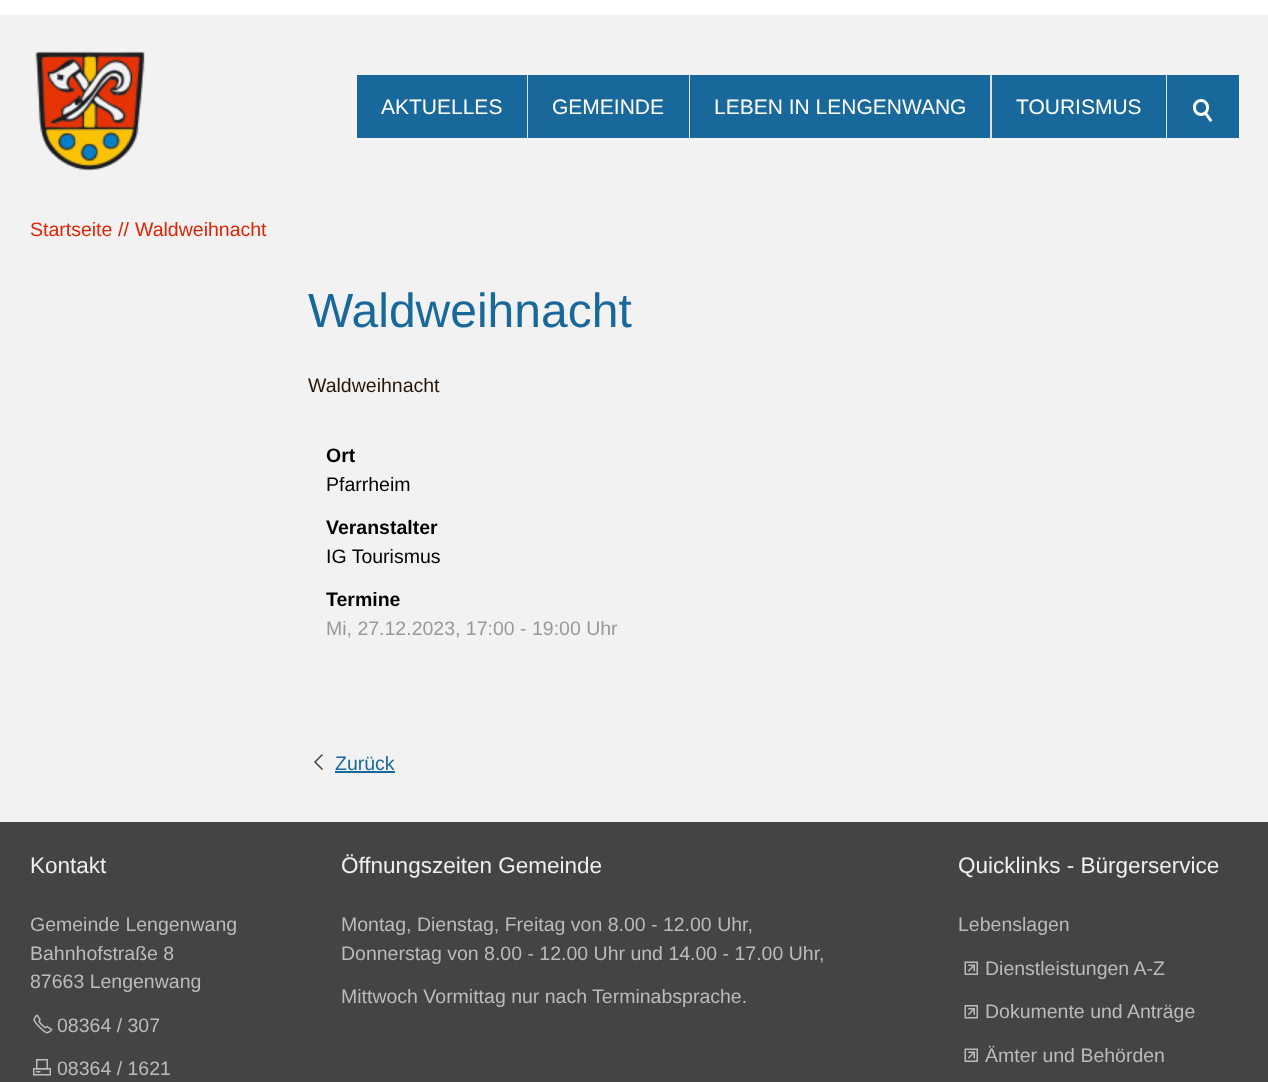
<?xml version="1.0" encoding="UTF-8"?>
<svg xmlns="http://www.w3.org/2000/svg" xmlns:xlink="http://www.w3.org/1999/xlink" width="1268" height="1082">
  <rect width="100%" height="100%" fill="#ffffff" />
  <rect y="15" width="1268" height="807" fill="#f2f2f2" />
  <image x="35" y="51" width="110" height="120" xlink:href="image1.png" />
  <rect x="357" y="75" width="809" height="63" fill="#19689c" />
  <rect x="527" y="75" width="1" height="63" fill="#e0e0e0" />
  <rect x="689" y="75" width="1" height="63" fill="#e0e0e0" />
  <rect x="990" y="75" width="2" height="63" fill="#e0e0e0" />
  <rect x="1166" y="75" width="1" height="63" fill="#e0e0e0" />
  <rect x="1167" y="75" width="72" height="63" fill="#19689c" />
  <rect x="1194.5" y="100.5" width="13" height="14" rx="6.5" fill="none" stroke="#ffffff" stroke-width="3" />
  <path d="M 1206.5 112 l 6 8.5 l -2.5 1.5 l -6 -8.5 z" fill="#ffffff" />
  <path d="M 322.5 754.5 l -7.5 7.5 l 7.5 7.5" fill="none" stroke="#444444" stroke-width="1.5" />
  <rect x="335" y="771" width="60" height="2" fill="#19689c" />
  <rect y="822" width="1268" height="260" fill="#444444" />
  <image x="33" y="1014" width="20" height="20" xlink:href="image2.png" />
  <image x="33" y="1059" width="18" height="17" xlink:href="image3.png" />
  <image x="964" y="961" width="14" height="14" xlink:href="image4.png" />
  <image x="964" y="1005" width="14" height="14" xlink:href="image5.png" />
  <image x="964" y="1048" width="14" height="14" xlink:href="image4.png" />
  <text x="381" y="114" style="font-family: Liberation Sans; font-size: 21px; fill: #ffffff">AKTUELLES</text>
  <text x="552" y="114" style="font-family: Liberation Sans; font-size: 21px; fill: #ffffff">GEMEINDE</text>
  <text x="714" y="114" style="font-family: Liberation Sans; font-size: 21px; fill: #ffffff">LEBEN IN LENGENWANG</text>
  <text x="1016" y="114" style="font-family: Liberation Sans; font-size: 21px; fill: #ffffff">TOURISMUS</text>
  <text x="30" y="236" style="font-family: Liberation Sans; font-size: 19.5px; fill: #e02301">Startseite</text>
  <text x="118" y="236" style="font-family: Liberation Sans; font-size: 19.5px; fill: #e02301">//</text>
  <text x="135" y="236" style="font-family: Liberation Sans; font-size: 19.5px; fill: #e02301">Waldweihnacht</text>
  <text x="308" y="327" style="font-family: Liberation Sans; font-size: 48px; fill: #19689c">Waldweihnacht</text>
  <text x="308" y="392" style="font-family: Liberation Sans; font-size: 19.5px; fill: #261507">Waldweihnacht</text>
  <text x="326" y="462" style="font-family: Liberation Sans; font-size: 19.5px; font-weight: bold; fill: #000000">Ort</text>
  <text x="326" y="491" style="font-family: Liberation Sans; font-size: 19.5px; fill: #000000">Pfarrheim</text>
  <text x="326" y="534" style="font-family: Liberation Sans; font-size: 19.5px; font-weight: bold; fill: #000000">Veranstalter</text>
  <text x="326" y="563" style="font-family: Liberation Sans; font-size: 19.5px; fill: #000000">IG Tourismus</text>
  <text x="326" y="606" style="font-family: Liberation Sans; font-size: 19.5px; font-weight: bold; fill: #000000">Termine</text>
  <text x="326" y="635" style="font-family: Liberation Sans; font-size: 19.5px; fill: #999999">Mi, 27.12.2023, 17:00 - 19:00 Uhr</text>
  <text x="335" y="770" style="font-family: Liberation Sans; font-size: 19.5px; fill: #19689c">Zurück</text>
  <text x="30" y="873" style="font-family: Liberation Sans; font-size: 22.5px; fill: #eeeeee">Kontakt</text>
  <text x="30" y="931" style="font-family: Liberation Sans; font-size: 19.5px; fill: #bbbbbb">Gemeinde Lengenwang</text>
  <text x="30" y="960" style="font-family: Liberation Sans; font-size: 19.5px; fill: #bbbbbb">Bahnhofstraße 8</text>
  <text x="30" y="988" style="font-family: Liberation Sans; font-size: 19.5px; fill: #bbbbbb">87663 Lengenwang</text>
  <text x="57" y="1032" style="font-family: Liberation Sans; font-size: 19.5px; fill: #bbbbbb">08364 / 307</text>
  <text x="57" y="1075" style="font-family: Liberation Sans; font-size: 19.5px; fill: #bbbbbb">08364 / 1621</text>
  <text x="341" y="873" style="font-family: Liberation Sans; font-size: 22.5px; fill: #eeeeee">Öffnungszeiten Gemeinde</text>
  <text x="341" y="931" style="font-family: Liberation Sans; font-size: 19.5px; fill: #bbbbbb">Montag, Dienstag, Freitag von 8.00 - 12.00 Uhr,</text>
  <text x="341" y="960" style="font-family: Liberation Sans; font-size: 19.5px; fill: #bbbbbb">Donnerstag von 8.00 - 12.00 Uhr und 14.00 - 17.00 Uhr,</text>
  <text x="341" y="1003" style="font-family: Liberation Sans; font-size: 19.5px; fill: #bbbbbb">Mittwoch Vormittag nur nach Terminabsprache.</text>
  <text x="958" y="873" style="font-family: Liberation Sans; font-size: 22.5px; fill: #eeeeee">Quicklinks - Bürgerservice</text>
  <text x="958" y="931" style="font-family: Liberation Sans; font-size: 19.5px; fill: #bbbbbb">Lebenslagen</text>
  <text x="985" y="975" style="font-family: Liberation Sans; font-size: 19.5px; fill: #bbbbbb">Dienstleistungen A-Z</text>
  <text x="985" y="1018" style="font-family: Liberation Sans; font-size: 19.5px; fill: #bbbbbb">Dokumente und Anträge</text>
  <text x="985" y="1062" style="font-family: Liberation Sans; font-size: 19.5px; fill: #bbbbbb">Ämter und Behörden</text>
</svg>
